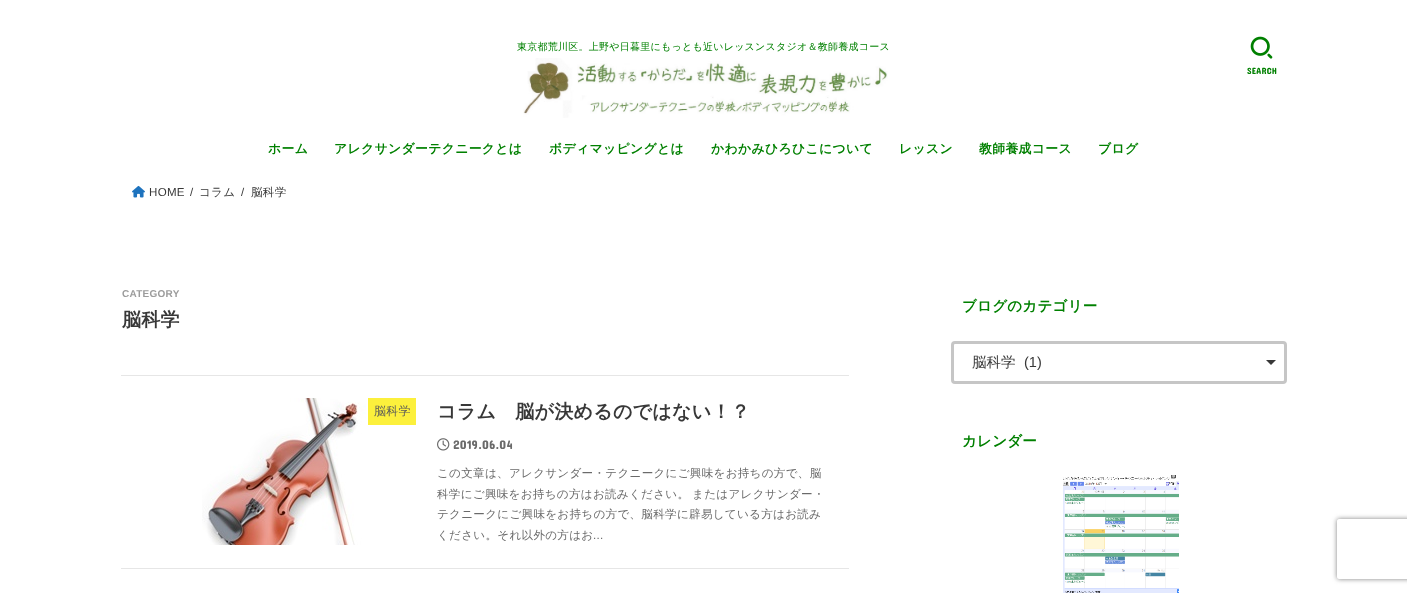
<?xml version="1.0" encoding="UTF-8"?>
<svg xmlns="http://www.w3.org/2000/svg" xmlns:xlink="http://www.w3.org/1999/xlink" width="1407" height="593">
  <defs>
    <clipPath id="clip1"><path d="M 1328 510 h 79 v 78 h -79 z m 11 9 h 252 c 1 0 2 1 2 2 v 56 c 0 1 -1 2 -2 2 h -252 c -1 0 -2 -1 -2 -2 v -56 c 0 -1 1 -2 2 -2 z" clip-rule="evenodd" /></clipPath>
  </defs>
  <rect width="100%" height="100%" fill="#ffffff" />
  <image x="523" y="58" width="365" height="60" xlink:href="image1.png" />
  <image x="1250" y="36" width="23" height="23" xlink:href="image2.png" />
  <image x="132" y="185" width="13" height="13" xlink:href="image3.png" />
  <rect x="121" y="375" width="728" height="1" fill="#e6e6e6" />
  <rect x="121" y="568" width="728" height="1" fill="#e6e6e6" />
  <image x="202" y="398" width="164" height="147" xlink:href="image4.png" />
  <rect x="368" y="398" width="48" height="27" fill="#fcf03c" />
  <image x="437" y="438" width="13" height="13" xlink:href="image5.png" />
  <path d="M 1266 360 h 10 l -5 5 z" fill="#383838" />
  <rect x="952.5" y="342.5" width="333" height="40" rx="2.5" fill="none" stroke="#c6c6c6" stroke-width="3" />
  <image x="1063" y="475" width="116" height="118" xlink:href="image6.png" />
  <g clip-path="url(#clip1)">
    <rect x="1337" y="519" width="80" height="60" rx="2" fill="#808080" filter="blur(2.5px)" />
  </g>
  <text x="517" y="50" style="font-family: WenQuanYi Zen Hei; font-size: 10px; font-weight: 500; letter-spacing: 0.25px; fill: #008000">東京都荒川区。上野や日暮里にもっとも近いレッスンスタジオ＆教師養成コース</text>
  <text x="1247" y="74" style="font-family: Concert One; font-size: 9px; letter-spacing: 0.25px; fill: #008000">SEARCH</text>
  <text x="268" y="153" style="font-family: WenQuanYi Zen Hei; font-size: 12.8px; font-weight: bold; letter-spacing: 0.4px; fill: #008000">ホーム</text>
  <text x="334" y="153" style="font-family: WenQuanYi Zen Hei; font-size: 12.8px; font-weight: bold; letter-spacing: 0.4px; fill: #008000">アレクサンダーテクニークとは</text>
  <text x="549" y="153" style="font-family: WenQuanYi Zen Hei; font-size: 12.8px; font-weight: bold; letter-spacing: 0.4px; fill: #008000">ボディマッピングとは</text>
  <text x="711" y="153" style="font-family: WenQuanYi Zen Hei; font-size: 12.8px; font-weight: bold; letter-spacing: 0.4px; fill: #008000">かわかみひろひこについて</text>
  <text x="899" y="153" style="font-family: WenQuanYi Zen Hei; font-size: 12.8px; font-weight: bold; letter-spacing: 0.4px; fill: #008000">レッスン</text>
  <text x="979" y="153" style="font-family: WenQuanYi Zen Hei; font-size: 12.8px; font-weight: bold; letter-spacing: 0.4px; fill: #008000">教師養成コース</text>
  <text x="1098" y="153" style="font-family: WenQuanYi Zen Hei; font-size: 12.8px; font-weight: bold; letter-spacing: 0.4px; fill: #008000">ブログ</text>
  <text x="149" y="196" style="font-family: Liberation Sans; font-size: 11.55px; letter-spacing: 0.3px; fill: #383838">HOME</text>
  <text x="190" y="196" style="font-family: Liberation Sans; font-size: 11.55px; letter-spacing: 0.3px; fill: #383838">/</text>
  <text x="199" y="196" style="font-family: WenQuanYi Zen Hei; font-size: 11.55px; font-weight: 500; letter-spacing: 0.3px; fill: #383838">コラム</text>
  <text x="241" y="196" style="font-family: Liberation Sans; font-size: 11.55px; letter-spacing: 0.3px; fill: #383838">/</text>
  <text x="251" y="196" style="font-family: WenQuanYi Zen Hei; font-size: 11.55px; font-weight: 500; letter-spacing: 0.3px; fill: #383838">脳科学</text>
  <text x="122" y="297" style="font-family: Liberation Sans; font-size: 10px; font-weight: bold; letter-spacing: 0.25px; fill: #9c9c9c">CATEGORY</text>
  <text x="122" y="326" style="font-family: WenQuanYi Zen Hei; font-size: 19px; font-weight: bold; letter-spacing: 0.25px; fill: #383838">脳科学</text>
  <text x="374" y="415" style="font-family: WenQuanYi Zen Hei; font-size: 12px; font-weight: 500; letter-spacing: 0.25px; fill: #5a5a5a">脳科学</text>
  <text x="437" y="418" style="font-family: WenQuanYi Zen Hei; font-size: 19px; font-weight: bold; letter-spacing: 0.25px; fill: #383838">コラム　脳が決めるのではない！？</text>
  <text x="453" y="449" style="font-family: Concert One; font-size: 12.5px; letter-spacing: 0.25px; fill: #6a6a6a">2019.06.04</text>
  <text x="437" y="477" style="font-family: WenQuanYi Zen Hei; font-size: 11.55px; font-weight: 500; letter-spacing: 0.3px; fill: #6a6a6a">この文章は、アレクサンダー・テクニークにご興味をお持ちの方で、脳</text>
  <text x="437" y="498" word-spacing="-1" style="font-family: WenQuanYi Zen Hei; font-size: 11.55px; font-weight: 500; letter-spacing: 0.3px; fill: #6a6a6a">科学にご興味をお持ちの方はお読みください。 またはアレクサンダー・</text>
  <text x="437" y="518" style="font-family: WenQuanYi Zen Hei; font-size: 11.55px; font-weight: 500; letter-spacing: 0.3px; fill: #6a6a6a">テクニークにご興味をお持ちの方で、脳科学に辟易している方はお読み</text>
  <text x="437" y="539" style="font-family: WenQuanYi Zen Hei; font-size: 11.55px; font-weight: 500; letter-spacing: 0.3px; fill: #6a6a6a">ください。それ以外の方はお</text>
  <text x="593" y="539" style="font-family: Liberation Sans; font-size: 11.55px; letter-spacing: 0.3px; fill: #6a6a6a">...</text>
  <text x="962" y="311" style="font-family: WenQuanYi Zen Hei; font-size: 14.5px; font-weight: bold; letter-spacing: 0.25px; fill: #008000">ブログのカテゴリー</text>
  <text x="972" y="367" style="font-family: WenQuanYi Zen Hei; font-size: 14.5px; font-weight: 500; fill: #383838">脳科学</text>
  <text x="1024" y="367" style="font-family: Liberation Sans; font-size: 14.5px; fill: #383838">(1)</text>
  <text x="962" y="446" style="font-family: WenQuanYi Zen Hei; font-size: 14.5px; font-weight: bold; letter-spacing: 0.25px; fill: #008000">カレンダー</text>
</svg>
